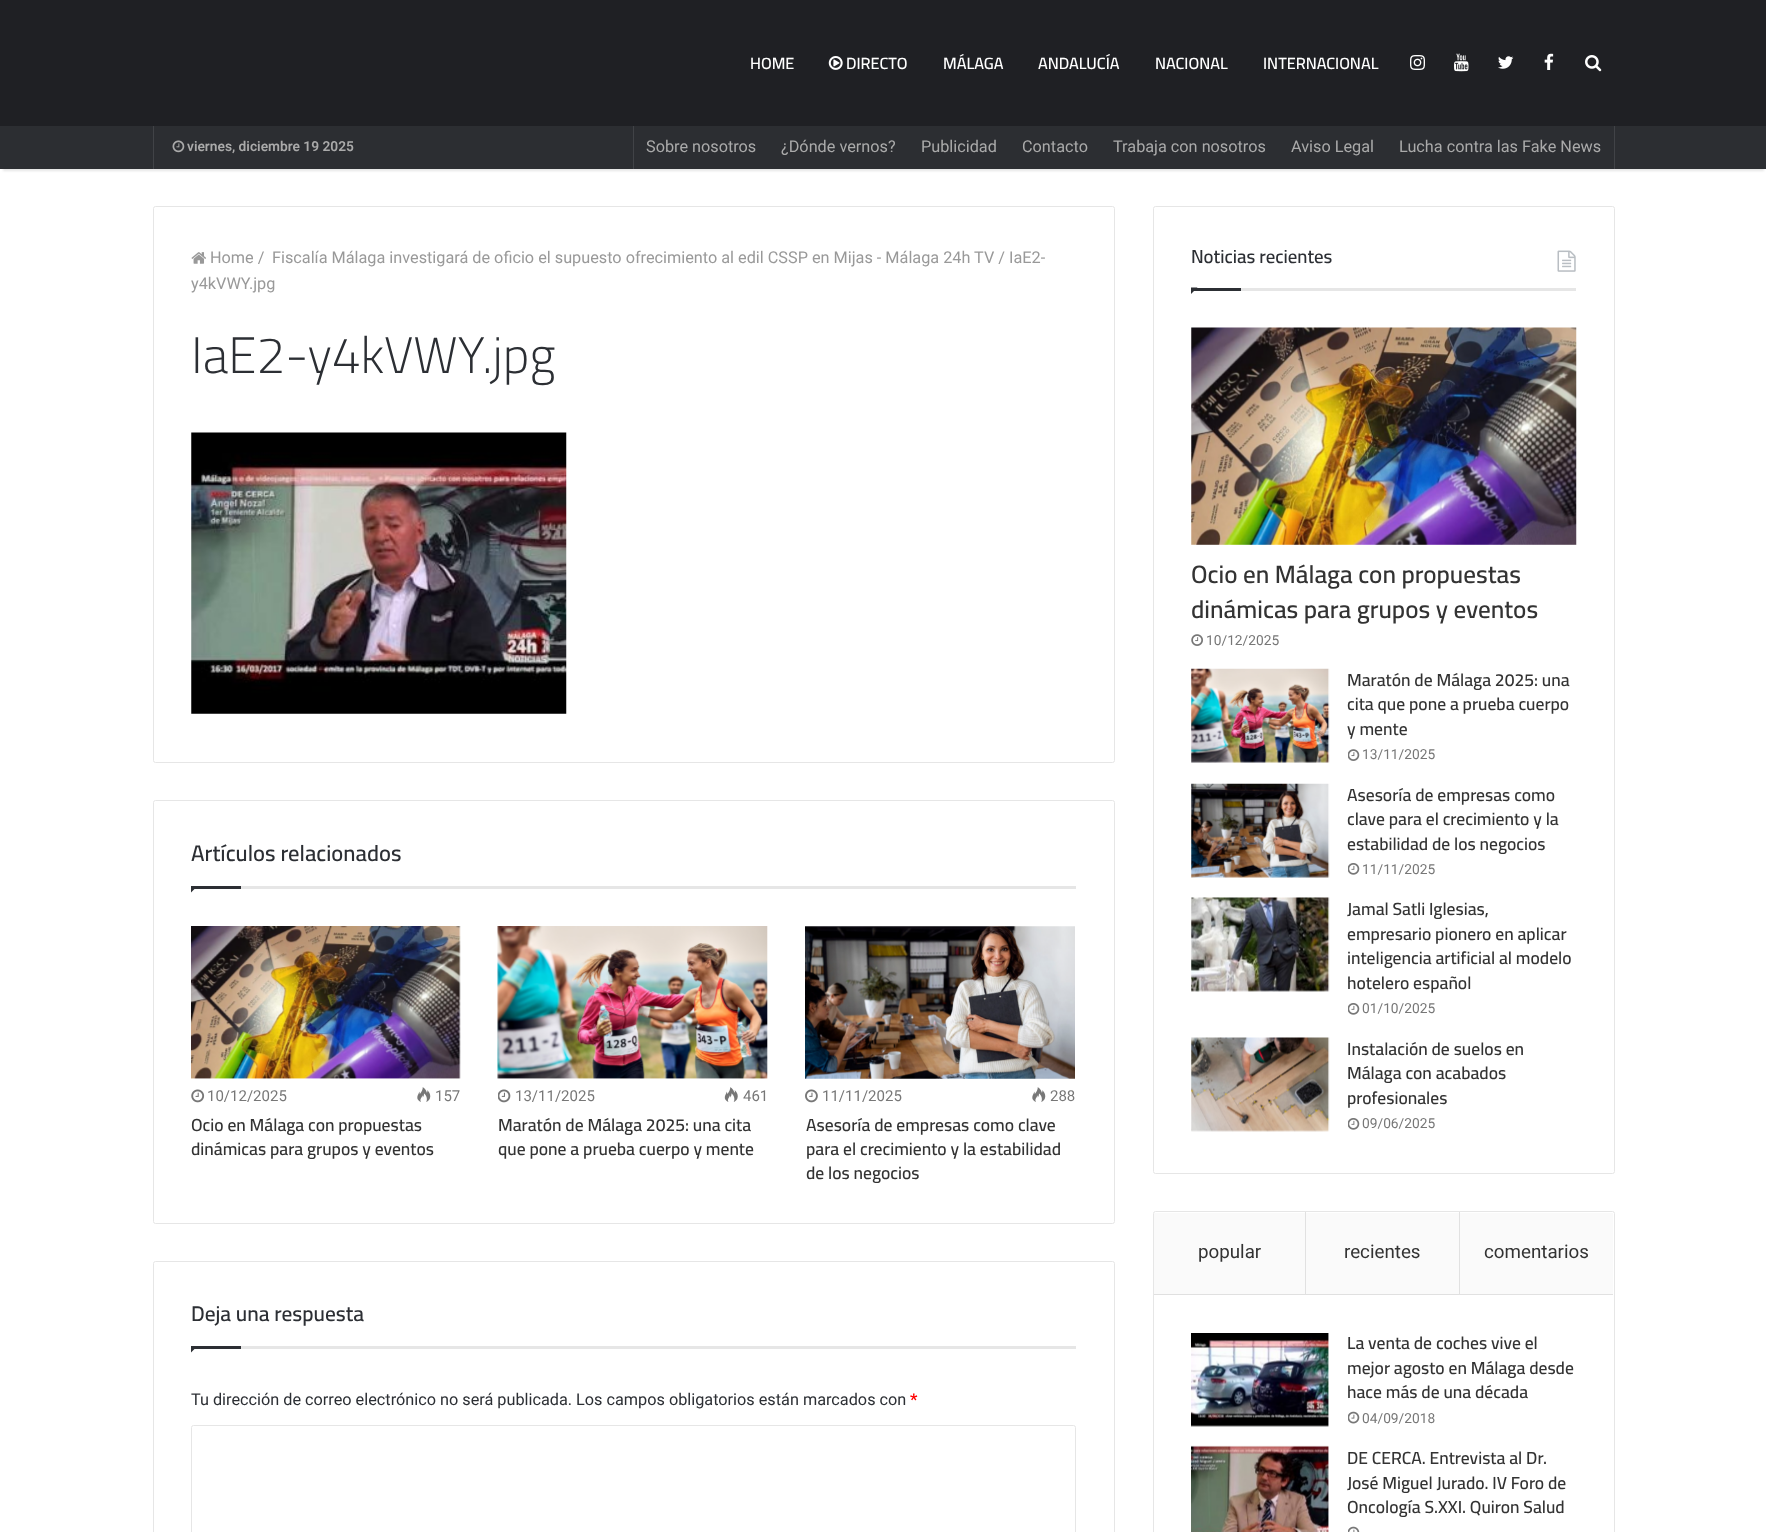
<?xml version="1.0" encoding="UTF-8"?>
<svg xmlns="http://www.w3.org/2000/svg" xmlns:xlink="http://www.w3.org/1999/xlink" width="1766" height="1532">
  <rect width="100%" height="100%" fill="#ffffff" />
  <rect x="3" y="8" width="1761" height="163" fill="#000000" fill-opacity="0.1" filter="blur(1px)" />
  <rect y="126" width="1766" height="43" fill="#2c2e32" />
  <rect x="153" y="125" width="1" height="44" fill="#414347" />
  <rect x="1614" y="125" width="1" height="44" fill="#414347" />
  <rect x="633" y="125" width="1" height="44" fill="#414347" />
  <rect width="1766" height="126" fill="#1f2024" />
  <image x="828" y="56" width="15" height="14" xlink:href="image1.png" />
  <image x="1410" y="55" width="15" height="15" xlink:href="image2.png" />
  <image x="1454" y="53" width="15" height="19" xlink:href="image3.png" />
  <image x="1498" y="56" width="16" height="13" xlink:href="image4.png" />
  <image x="1544" y="53" width="10" height="17" xlink:href="image5.png" />
  <image x="1585" y="55" width="17" height="17" xlink:href="image6.png" />
  <image x="172" y="140" width="13" height="13" xlink:href="image7.png" />
  <rect x="153.5" y="206.5" width="961" height="556" rx="2" fill="none" stroke="#e6e6e6" />
  <image x="191" y="252" width="15" height="12" xlink:href="image8.png" />
  <image x="191" y="432" width="376" height="282" xlink:href="image9.png" />
  <rect x="153.5" y="800.5" width="961" height="423" rx="2" fill="none" stroke="#e6e6e6" />
  <rect x="241" y="886" width="835" height="3" fill="#e6e6e6" />
  <path d="M 191 886 h 6.5 l -6.5 6.5 z" fill="#2c2f34" />
  <rect x="191" y="886" width="50" height="3" fill="#2c2f34" />
  <image x="191" y="926" width="270" height="153" xlink:href="image10.png" />
  <image x="191" y="1089" width="14" height="14" xlink:href="image11.png" />
  <image x="417" y="1087" width="14" height="15" xlink:href="image12.png" />
  <image x="497" y="926" width="271" height="153" xlink:href="image13.png" />
  <image x="498" y="1089" width="13" height="14" xlink:href="image14.png" />
  <image x="724" y="1087" width="14" height="15" xlink:href="image15.png" />
  <image x="805" y="926" width="270" height="153" xlink:href="image16.png" />
  <image x="805" y="1089" width="13" height="14" xlink:href="image17.png" />
  <image x="1032" y="1087" width="14" height="15" xlink:href="image12.png" />
  <rect x="153.5" y="1261.5" width="961" height="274" rx="2" fill="none" stroke="#e6e6e6" />
  <rect x="241" y="1346" width="835" height="3" fill="#e6e6e6" />
  <path d="M 191 1346 h 6.5 l -6.5 6.5 z" fill="#2c2f34" />
  <rect x="191" y="1346" width="50" height="3" fill="#2c2f34" />
  <rect x="191.5" y="1425.5" width="884" height="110" rx="2" fill="none" stroke="#e6e6e6" />
  <rect x="1153.5" y="206.5" width="461" height="967" rx="2" fill="none" stroke="#e6e6e6" />
  <rect x="1241" y="288" width="335" height="3" fill="#e6e6e6" />
  <image x="1557" y="250" width="19" height="22" xlink:href="image18.png" />
  <path d="M 1191 287.5 h 6.5 l -6.5 6.5 z" fill="#2c2f34" />
  <rect x="1191" y="288" width="50" height="3" fill="#2c2f34" />
  <image x="1191" y="327" width="386" height="218" xlink:href="image19.png" />
  <image x="1191" y="634" width="12" height="12" xlink:href="image20.png" />
  <image x="1191" y="668" width="139" height="95" xlink:href="image21.png" />
  <image x="1348" y="749" width="12" height="12" xlink:href="image22.png" />
  <image x="1191" y="783" width="139" height="95" xlink:href="image23.png" />
  <image x="1348" y="863" width="12" height="12" xlink:href="image24.png" />
  <image x="1191" y="897" width="139" height="95" xlink:href="image25.png" />
  <image x="1348" y="1003" width="12" height="12" xlink:href="image24.png" />
  <image x="1191" y="1037" width="139" height="95" xlink:href="image26.png" />
  <image x="1348" y="1118" width="12" height="12" xlink:href="image24.png" />
  <rect x="1153.5" y="1211.5" width="461" height="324" rx="2" fill="none" stroke="#e6e6e6" />
  <rect x="1154" y="1213" width="306" height="82" fill="#fafafa" />
  <path d="M 1306 1212 v 83 l -1 -1 v -82 z" fill="#e1e1e1" />
  <path d="M 1306 1295 h -152 v -1 h 151 z" fill="#000000" fill-opacity="0.1" />
  <path d="M 1460 1212 v 83 l -1 -1 v -82 z" fill="#e1e1e1" />
  <path d="M 1460 1295 h -154 v -1 h 153 z" fill="#000000" fill-opacity="0.1" />
  <rect x="1460" y="1213" width="153" height="81" fill="#fafafa" />
  <rect x="1460" y="1294" width="153" height="1" fill="#e1e1e1" />
  <image x="1191" y="1333" width="138" height="94" xlink:href="image27.png" />
  <image x="1348" y="1411" width="12" height="13" xlink:href="image28.png" />
  <image x="1191" y="1445" width="138" height="87" xlink:href="image29.png" />
  <image x="1348" y="1526" width="12" height="6" xlink:href="image30.png" />
  <text x="750" y="69" style="font-family: Cairo; font-size: 16.25px; font-weight: 600; fill: #ffffff">HOME</text>
  <text x="846" y="69" style="font-family: Cairo; font-size: 16.25px; font-weight: 600; fill: #ffffff">DIRECTO</text>
  <text x="943" y="69" style="font-family: Cairo; font-size: 16.25px; font-weight: 600; fill: #ffffff">MÁLAGA</text>
  <text x="1038" y="69" style="font-family: Cairo; font-size: 16.25px; font-weight: 600; fill: #ffffff">ANDALUCÍA</text>
  <text x="1155" y="69" style="font-family: Cairo; font-size: 16.25px; font-weight: 600; fill: #ffffff">NACIONAL</text>
  <text x="1263" y="69" style="font-family: Cairo; font-size: 16.25px; font-weight: 600; fill: #ffffff">INTERNACIONAL</text>
  <text x="187" y="151" style="font-family: Roboto; font-size: 13.75px; font-weight: 600; fill: #aaaaaa">viernes, diciembre 19 2025</text>
  <text x="646" y="152" style="font-family: Roboto; font-size: 16.25px; fill: #aaaaaa">Sobre nosotros</text>
  <text x="781" y="152" style="font-family: Roboto; font-size: 16.25px; fill: #aaaaaa">¿Dónde vernos?</text>
  <text x="921" y="152" style="font-family: Roboto; font-size: 16.25px; fill: #aaaaaa">Publicidad</text>
  <text x="1022" y="152" style="font-family: Roboto; font-size: 16.25px; fill: #aaaaaa">Contacto</text>
  <text x="1113" y="152" style="font-family: Roboto; font-size: 16.25px; fill: #aaaaaa">Trabaja con nosotros</text>
  <text x="1291" y="152" style="font-family: Roboto; font-size: 16.25px; fill: #aaaaaa">Aviso Legal</text>
  <text x="1399" y="152" style="font-family: Roboto; font-size: 16.25px; fill: #aaaaaa">Lucha contra las Fake News</text>
  <text x="210" y="263" style="font-family: Roboto; font-size: 16.25px; fill: #999999">Home /</text>
  <text x="272" y="263" style="font-family: Roboto; font-size: 16.25px; fill: #999999">Fiscalía Málaga investigará de oficio el supuesto ofrecimiento al edil CSSP en Mijas - Málaga 24h TV / IaE2-</text>
  <text x="191" y="289" style="font-family: Roboto; font-size: 16.25px; fill: #999999">y4kVWY.jpg</text>
  <text x="191" y="373" style="font-family: Cairo; font-size: 51.25px; font-weight: 300; fill: #2c2f34">IaE2-y4kVWY.jpg</text>
  <text x="191" y="861" style="font-family: Cairo; font-size: 22.5px; font-weight: 600; fill: #2c2f34">Artículos relacionados</text>
  <text x="207" y="1101" style="font-family: Roboto; font-size: 15px; fill: #777777">10/12/2025</text>
  <text x="435" y="1101" style="font-family: Roboto; font-size: 15px; fill: #777777">157</text>
  <text x="191" y="1131" style="font-family: Cairo; font-size: 17.5px; font-weight: 600; fill: #333333">Ocio en Málaga con propuestas</text>
  <text x="191" y="1155" style="font-family: Cairo; font-size: 17.5px; font-weight: 600; fill: #333333">dinámicas para grupos y eventos</text>
  <text x="515" y="1101" style="font-family: Roboto; font-size: 15px; fill: #777777">13/11/2025</text>
  <text x="743" y="1101" style="font-family: Roboto; font-size: 15px; fill: #777777">461</text>
  <text x="498" y="1131" style="font-family: Cairo; font-size: 17.5px; font-weight: 600; fill: #333333">Maratón de Málaga 2025: una cita</text>
  <text x="498" y="1155" style="font-family: Cairo; font-size: 17.5px; font-weight: 600; fill: #333333">que pone a prueba cuerpo y mente</text>
  <text x="822" y="1101" style="font-family: Roboto; font-size: 15px; fill: #777777">11/11/2025</text>
  <text x="1050" y="1101" style="font-family: Roboto; font-size: 15px; fill: #777777">288</text>
  <text x="806" y="1131" style="font-family: Cairo; font-size: 17.5px; font-weight: 600; fill: #333333">Asesoría de empresas como clave</text>
  <text x="806" y="1155" style="font-family: Cairo; font-size: 17.5px; font-weight: 600; fill: #333333">para el crecimiento y la estabilidad</text>
  <text x="806" y="1179" style="font-family: Cairo; font-size: 17.5px; font-weight: 600; fill: #333333">de los negocios</text>
  <text x="191" y="1321" style="font-family: Cairo; font-size: 21.25px; font-weight: 600; fill: #2c2f34">Deja una respuesta</text>
  <text x="191" y="1405" style="font-family: Roboto; font-size: 16.25px; fill: #2c2f34">Tu dirección de correo electrónico no será publicada. Los campos obligatorios están marcados con</text>
  <text x="910" y="1405" style="font-family: Roboto; font-size: 16.25px; font-weight: bold; fill: #ff0000">*</text>
  <text x="1191" y="263" style="font-family: Cairo; font-size: 18.75px; font-weight: 600; fill: #2c2f34">Noticias recientes</text>
  <text x="1191" y="583" style="font-family: Cairo; font-size: 25px; font-weight: 600; fill: #333333">Ocio en Málaga con propuestas</text>
  <text x="1191" y="618" style="font-family: Cairo; font-size: 25px; font-weight: 600; fill: #333333">dinámicas para grupos y eventos</text>
  <text x="1206" y="645" style="font-family: Roboto; font-size: 13.75px; fill: #777777">10/12/2025</text>
  <text x="1347" y="686" style="font-family: Cairo; font-size: 17.5px; font-weight: 600; fill: #333333">Maratón de Málaga 2025: una</text>
  <text x="1347" y="710" style="font-family: Cairo; font-size: 17.5px; font-weight: 600; fill: #333333">cita que pone a prueba cuerpo</text>
  <text x="1347" y="735" style="font-family: Cairo; font-size: 17.5px; font-weight: 600; fill: #333333">y mente</text>
  <text x="1362" y="759" style="font-family: Roboto; font-size: 13.75px; fill: #777777">13/11/2025</text>
  <text x="1347" y="801" style="font-family: Cairo; font-size: 17.5px; font-weight: 600; fill: #333333">Asesoría de empresas como</text>
  <text x="1347" y="825" style="font-family: Cairo; font-size: 17.5px; font-weight: 600; fill: #333333">clave para el crecimiento y la</text>
  <text x="1347" y="850" style="font-family: Cairo; font-size: 17.5px; font-weight: 600; fill: #333333">estabilidad de los negocios</text>
  <text x="1362" y="874" style="font-family: Roboto; font-size: 13.75px; fill: #777777">11/11/2025</text>
  <text x="1347" y="915" style="font-family: Cairo; font-size: 17.5px; font-weight: 600; fill: #333333">Jamal Satli Iglesias,</text>
  <text x="1347" y="940" style="font-family: Cairo; font-size: 17.5px; font-weight: 600; fill: #333333">empresario pionero en aplicar</text>
  <text x="1347" y="964" style="font-family: Cairo; font-size: 17.5px; font-weight: 600; fill: #333333">inteligencia artificial al modelo</text>
  <text x="1347" y="989" style="font-family: Cairo; font-size: 17.5px; font-weight: 600; fill: #333333">hotelero español</text>
  <text x="1362" y="1013" style="font-family: Roboto; font-size: 13.75px; fill: #777777">01/10/2025</text>
  <text x="1347" y="1055" style="font-family: Cairo; font-size: 17.5px; font-weight: 600; fill: #333333">Instalación de suelos en</text>
  <text x="1347" y="1079" style="font-family: Cairo; font-size: 17.5px; font-weight: 600; fill: #333333">Málaga con acabados</text>
  <text x="1347" y="1104" style="font-family: Cairo; font-size: 17.5px; font-weight: 600; fill: #333333">profesionales</text>
  <text x="1362" y="1128" style="font-family: Roboto; font-size: 13.75px; fill: #777777">09/06/2025</text>
  <text x="1198" y="1258" style="font-family: Roboto; font-size: 18.75px; fill: #333333">popular</text>
  <text x="1344" y="1258" style="font-family: Roboto; font-size: 18.75px; fill: #333333">recientes</text>
  <text x="1484" y="1258" style="font-family: Roboto; font-size: 18.75px; fill: #333333">comentarios</text>
  <text x="1347" y="1349" style="font-family: Cairo; font-size: 17.5px; font-weight: 600; fill: #333333">La venta de coches vive el</text>
  <text x="1347" y="1374" style="font-family: Cairo; font-size: 17.5px; font-weight: 600; fill: #333333">mejor agosto en Málaga desde</text>
  <text x="1347" y="1398" style="font-family: Cairo; font-size: 17.5px; font-weight: 600; fill: #333333">hace más de una década</text>
  <text x="1362" y="1423" style="font-family: Roboto; font-size: 13.75px; fill: #777777">04/09/2018</text>
  <text x="1347" y="1464" style="font-family: Cairo; font-size: 17.5px; font-weight: 600; fill: #333333">DE CERCA. Entrevista al Dr.</text>
  <text x="1347" y="1489" style="font-family: Cairo; font-size: 17.5px; font-weight: 600; fill: #333333">José Miguel Jurado. IV Foro de</text>
  <text x="1347" y="1513" style="font-family: Cairo; font-size: 17.5px; font-weight: 600; fill: #333333">Oncología S.XXI. Quiron Salud</text>
</svg>
